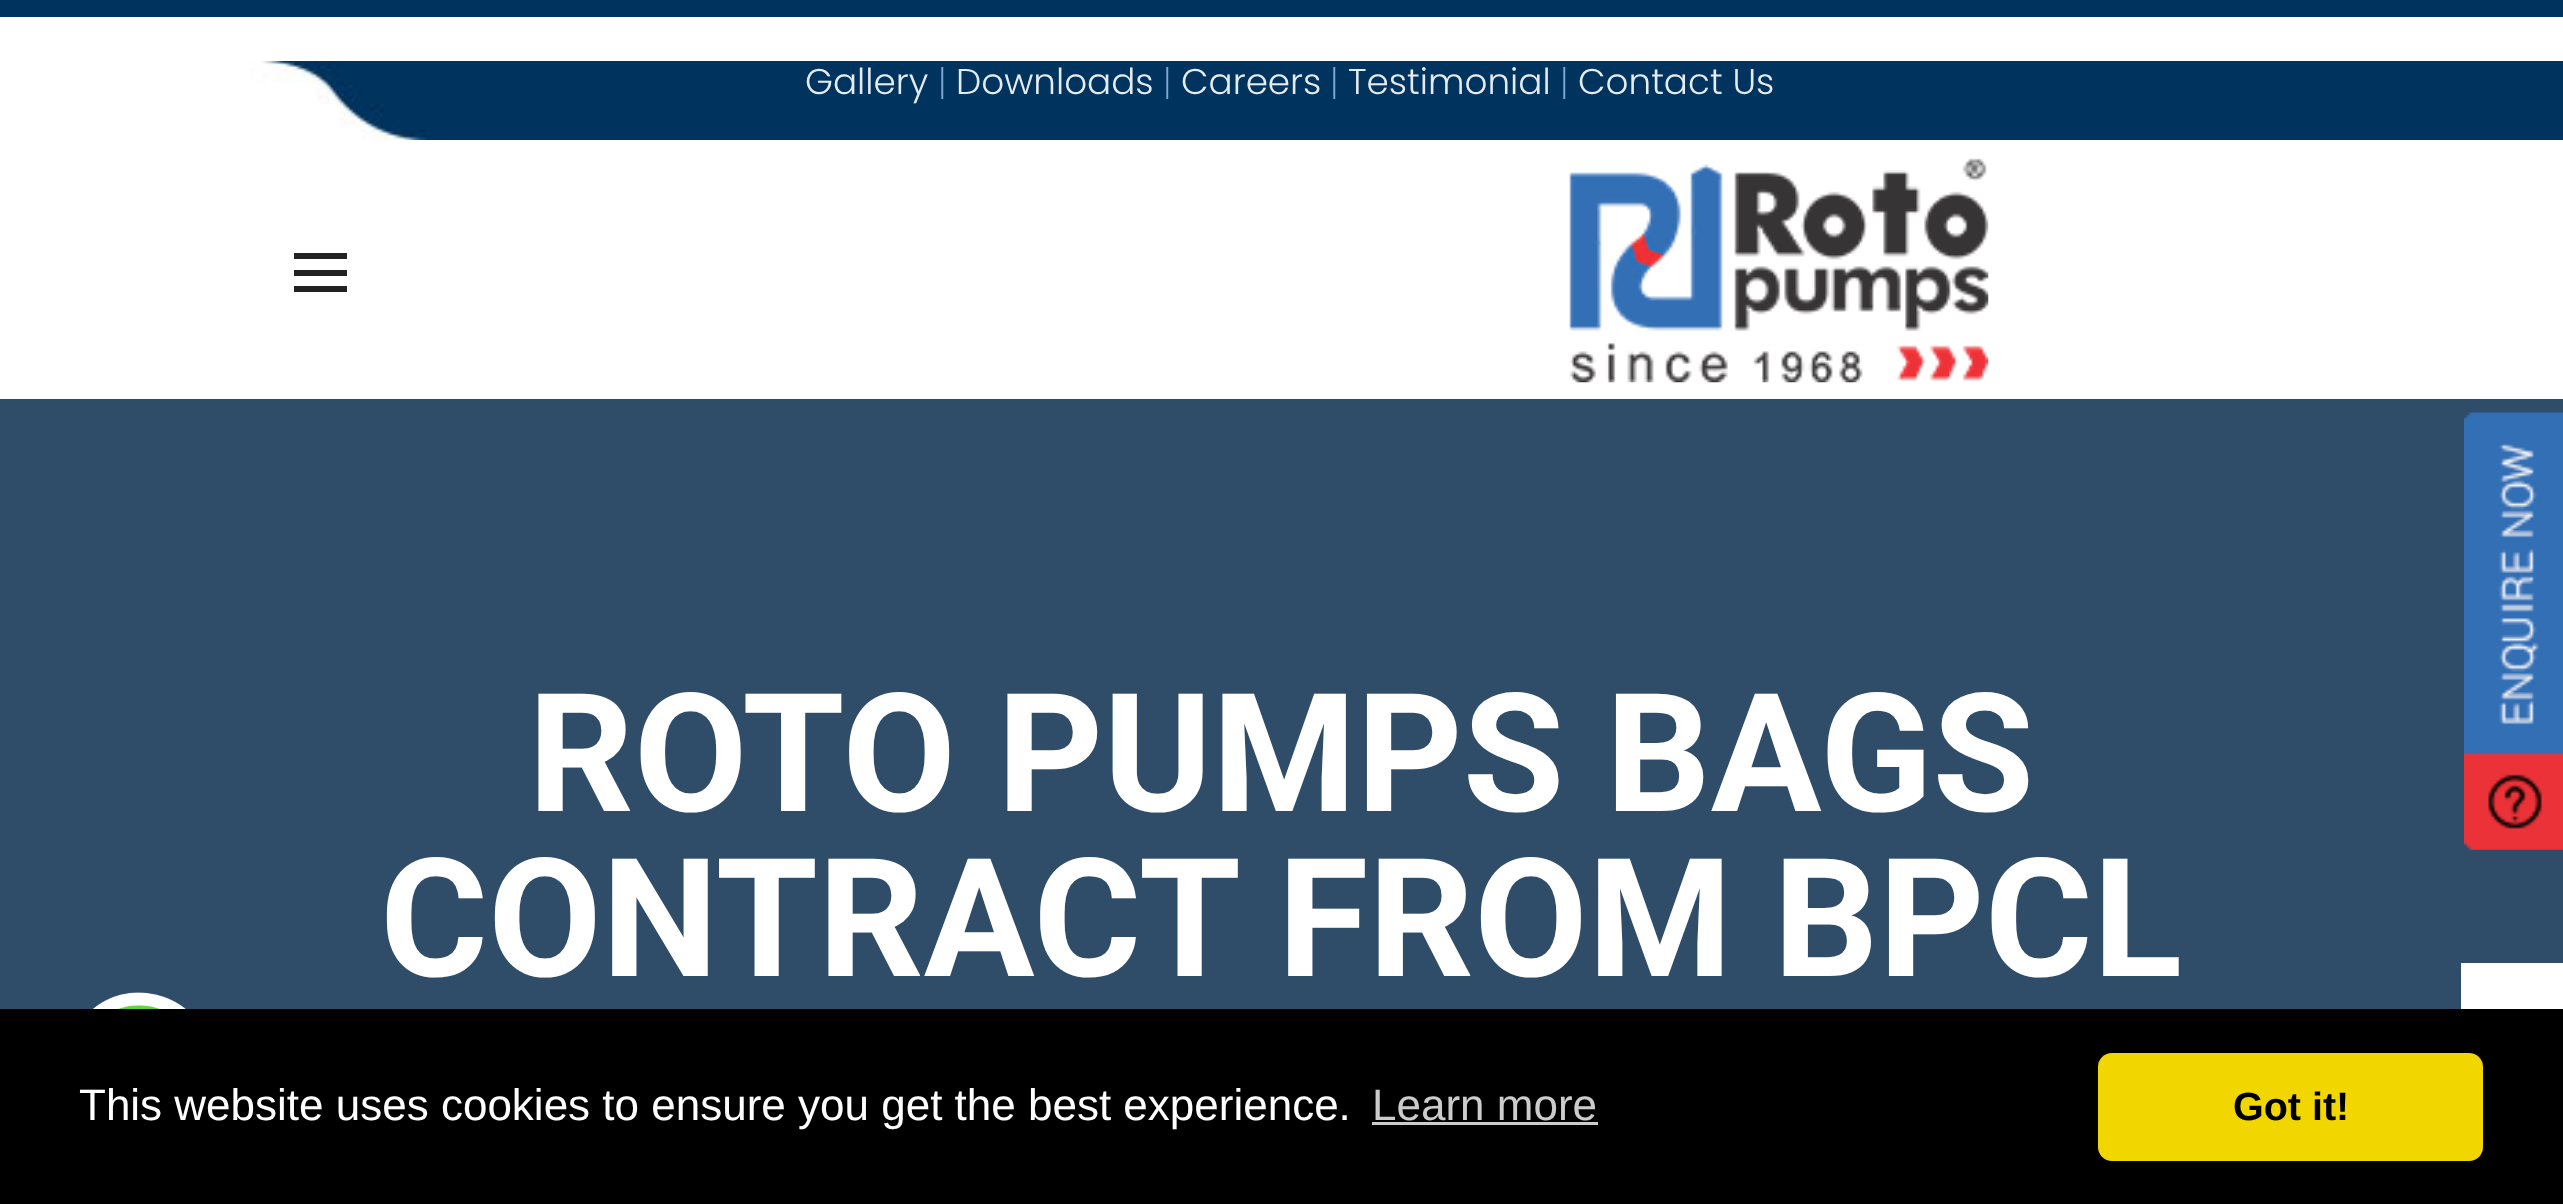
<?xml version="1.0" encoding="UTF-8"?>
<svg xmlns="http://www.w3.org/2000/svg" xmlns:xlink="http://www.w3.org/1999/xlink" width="2563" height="1204">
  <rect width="100%" height="100%" fill="#ffffff" />
  <rect width="2563" height="17" fill="#00335e" />
  <rect x="427" y="61" width="2136" height="79" fill="#00335e" />
  <image x="250" y="61" width="177" height="79" xlink:href="image1.png" />
  <rect x="294" y="270" width="53" height="6" fill="#222222" />
  <rect x="294" y="253" width="53" height="6" fill="#222222" />
  <rect x="294" y="286" width="53" height="6" fill="#222222" />
  <image x="1569" y="158" width="420" height="225" xlink:href="image2.png" />
  <rect y="399" width="2563" height="610" fill="#2f4c69" />
  <image x="92" y="992" width="94" height="17" xlink:href="image3.png" />
  <rect x="2461" y="963" width="102" height="46" fill="#ffffff" />
  <image x="2464" y="412" width="99" height="438" xlink:href="image4.png" />
  <rect y="1009" width="2563" height="195" fill="#000000" />
  <rect x="1372" y="1122" width="226" height="3" fill="#cccccc" />
  <rect x="2098" y="1053" width="385" height="108" rx="14" fill="#f1d600" />
  <text x="805" y="94" style="font-family: Poppins; font-size: 35.75px; font-weight: 300; fill: #e6ebef">Gallery</text>
  <text x="938" y="94" style="font-family: Roboto; font-size: 38px; font-weight: 300; fill: #80a8d6">|</text>
  <text x="956" y="94" style="font-family: Poppins; font-size: 35.75px; font-weight: 300; fill: #e6ebef">Downloads</text>
  <text x="1163" y="94" style="font-family: Roboto; font-size: 38px; font-weight: 300; fill: #80a8d6">|</text>
  <text x="1181" y="94" style="font-family: Poppins; font-size: 35.75px; font-weight: 300; fill: #e6ebef">Careers</text>
  <text x="1330" y="94" style="font-family: Roboto; font-size: 38px; font-weight: 300; fill: #80a8d6">|</text>
  <text x="1348" y="94" style="font-family: Poppins; font-size: 35.75px; font-weight: 300; fill: #e6ebef">Testimonial</text>
  <text x="1560" y="94" style="font-family: Roboto; font-size: 38px; font-weight: 300; fill: #80a8d6">|</text>
  <text x="1578" y="94" style="font-family: Poppins; font-size: 35.75px; font-weight: 300; fill: #e6ebef">Contact Us</text>
  <text x="528" y="811" style="font-family: Roboto; font-size: 165px; font-weight: bold; fill: #ffffff">ROTO PUMPS BAGS</text>
  <text x="380" y="976" style="font-family: Roboto; font-size: 165px; font-weight: bold; fill: #ffffff">CONTRACT FROM BPCL</text>
  <text x="79" y="1120" style="font-family: Liberation Sans; font-size: 44px; fill: #ffffff">This website uses cookies to ensure you get the best experience.</text>
  <text x="1372" y="1120" style="font-family: Liberation Sans; font-size: 44px; fill: #cccccc">Learn more</text>
  <text x="2233" y="1120" style="font-family: Liberation Sans; font-size: 39.5px; font-weight: bold; fill: #000000">Got it!</text>
</svg>
